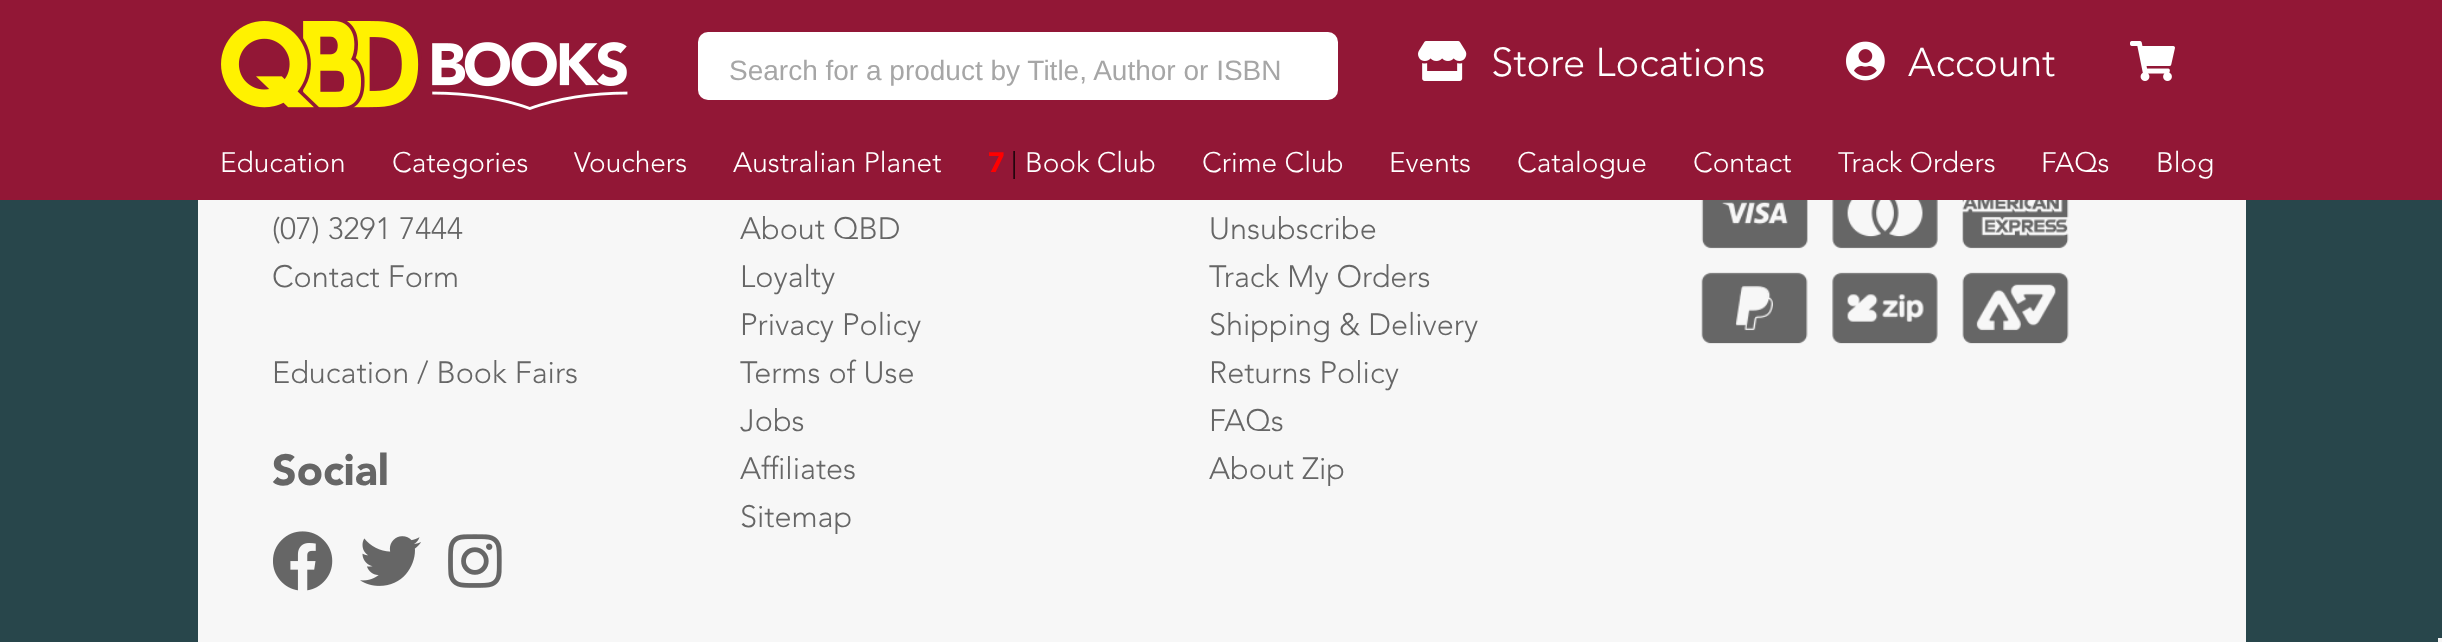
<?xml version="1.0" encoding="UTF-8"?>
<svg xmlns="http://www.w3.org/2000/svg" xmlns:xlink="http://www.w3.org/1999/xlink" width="2442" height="642">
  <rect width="100%" height="100%" fill="#28464b" />
  <rect width="2442" height="200" fill="#921736" />
  <image x="221" y="21" width="407" height="89" xlink:href="image1.png" />
  <rect x="698" y="32" width="640" height="68" rx="10" fill="#ffffff" />
  <image x="1418" y="41" width="49" height="40" xlink:href="image2.png" />
  <image x="1846" y="41" width="39" height="40" xlink:href="image3.png" />
  <image x="2130" y="41" width="45" height="40" xlink:href="image4.png" />
  <rect x="198" y="200" width="2048" height="442" fill="#f7f7f7" />
  <image x="273" y="531" width="60" height="60" xlink:href="image5.png" />
  <image x="360" y="536" width="61" height="50" xlink:href="image6.png" />
  <image x="448" y="534" width="54" height="54" xlink:href="image7.png" />
  <image x="1701" y="200" width="368" height="144" xlink:href="image8.png" />
  <rect x="2438" y="638" width="4" height="4" fill="#f5f5f5" />
  <text x="729" y="80" style="font-family: Liberation Sans; font-size: 28px; fill: #a6a6a6">Search for a product by Title, Author or ISBN</text>
  <text x="1491" y="76" style="font-family: Avenir; font-size: 40px; font-weight: 300; fill: #ffffff">Store Locations</text>
  <text x="1908" y="76" style="font-family: Avenir; font-size: 40px; font-weight: 300; fill: #ffffff">Account</text>
  <text x="220" y="172" style="font-family: Avenir; font-size: 28px; font-weight: 300; fill: #ffffff">Education</text>
  <text x="392" y="172" style="font-family: Avenir; font-size: 28px; font-weight: 300; fill: #ffffff">Categories</text>
  <text x="574" y="172" style="font-family: Avenir; font-size: 28px; font-weight: 300; fill: #ffffff">Vouchers</text>
  <text x="733" y="172" style="font-family: Avenir; font-size: 28px; font-weight: 300; fill: #ffffff">Australian Planet</text>
  <text x="988" y="172" style="font-family: Avenir; font-size: 28px; font-weight: 900; fill: #ff0000">7</text>
  <text x="1011" y="172" style="font-family: Avenir; font-size: 28px; font-weight: 300; fill: #000000">|</text>
  <text x="1025" y="172" style="font-family: Avenir; font-size: 28px; font-weight: 300; fill: #ffffff">Book Club</text>
  <text x="1202" y="172" style="font-family: Avenir; font-size: 28px; font-weight: 300; fill: #ffffff">Crime Club</text>
  <text x="1389" y="172" style="font-family: Avenir; font-size: 28px; font-weight: 300; fill: #ffffff">Events</text>
  <text x="1517" y="172" style="font-family: Avenir; font-size: 28px; font-weight: 300; fill: #ffffff">Catalogue</text>
  <text x="1693" y="172" style="font-family: Avenir; font-size: 28px; font-weight: 300; fill: #ffffff">Contact</text>
  <text x="1838" y="172" style="font-family: Avenir; font-size: 28px; font-weight: 300; fill: #ffffff">Track Orders</text>
  <text x="2041" y="172" style="font-family: Avenir; font-size: 28px; font-weight: 300; fill: #ffffff">FAQs</text>
  <text x="2156" y="172" style="font-family: Avenir; font-size: 28px; font-weight: 300; fill: #ffffff">Blog</text>
  <text x="272" y="239" style="font-family: Avenir; font-size: 30.6px; font-weight: 300; fill: #666666">(07) 3291 7444</text>
  <text x="272" y="287" style="font-family: Avenir; font-size: 30.6px; font-weight: 300; fill: #666666">Contact Form</text>
  <text x="272" y="383" style="font-family: Avenir; font-size: 30.6px; font-weight: 300; fill: #666666">Education / Book Fairs</text>
  <text x="272" y="485" style="font-family: Avenir; font-size: 43px; font-weight: 900; fill: #666666">Social</text>
  <text x="740" y="239" style="font-family: Avenir; font-size: 30.6px; font-weight: 300; fill: #666666">About QBD</text>
  <text x="740" y="287" style="font-family: Avenir; font-size: 30.6px; font-weight: 300; fill: #666666">Loyalty</text>
  <text x="740" y="335" style="font-family: Avenir; font-size: 30.6px; font-weight: 300; fill: #666666">Privacy Policy</text>
  <text x="740" y="383" style="font-family: Avenir; font-size: 30.6px; font-weight: 300; fill: #666666">Terms of Use</text>
  <text x="740" y="431" style="font-family: Avenir; font-size: 30.6px; font-weight: 300; fill: #666666">Jobs</text>
  <text x="740" y="479" style="font-family: Avenir; font-size: 30.6px; font-weight: 300; fill: #666666">Affiliates</text>
  <text x="740" y="527" style="font-family: Avenir; font-size: 30.6px; font-weight: 300; fill: #666666">Sitemap</text>
  <text x="1209" y="239" style="font-family: Avenir; font-size: 30.6px; font-weight: 300; fill: #666666">Unsubscribe</text>
  <text x="1209" y="287" style="font-family: Avenir; font-size: 30.6px; font-weight: 300; fill: #666666">Track My Orders</text>
  <text x="1209" y="335" style="font-family: Avenir; font-size: 30.6px; font-weight: 300; fill: #666666">Shipping &amp; Delivery</text>
  <text x="1209" y="383" style="font-family: Avenir; font-size: 30.6px; font-weight: 300; fill: #666666">Returns Policy</text>
  <text x="1209" y="431" style="font-family: Avenir; font-size: 30.6px; font-weight: 300; fill: #666666">FAQs</text>
  <text x="1209" y="479" style="font-family: Avenir; font-size: 30.6px; font-weight: 300; fill: #666666">About Zip</text>
</svg>
